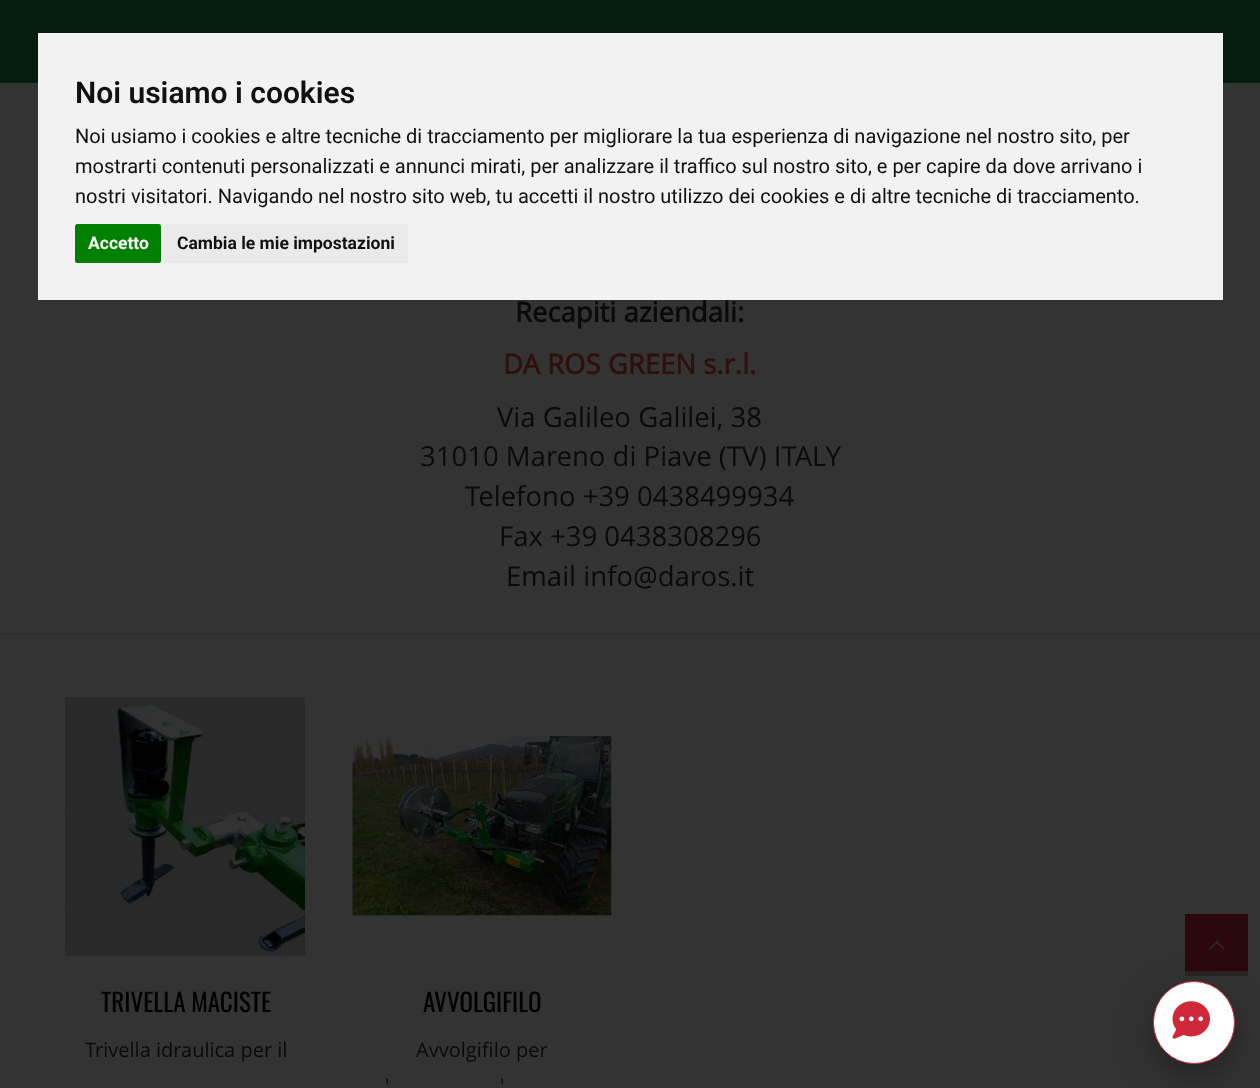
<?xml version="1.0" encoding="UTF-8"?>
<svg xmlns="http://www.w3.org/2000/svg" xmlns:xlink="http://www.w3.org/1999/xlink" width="1260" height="1088">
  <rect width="100%" height="100%" fill="#333333" />
  <rect width="1260" height="83" fill="#031d0e" />
  <rect x="38" y="33" width="1185" height="267" fill="#f2f2f2" />
  <rect x="75" y="224" width="86" height="39" rx="2.5" fill="#008000" />
  <rect x="164" y="224" width="244" height="39" rx="2.5" fill="#eaeaea" />
  <rect x="1185" y="914" width="63" height="57" fill="#2a080b" />
  <rect x="1185" y="971" width="63" height="5" fill="#272423" />
  <image x="1208" y="940" width="17" height="10" xlink:href="image1.png" />
  <rect y="634" width="1260" height="1" fill="#2c2c2c" />
  <image x="65" y="697" width="240" height="259" xlink:href="image2.png" />
  <image x="352" y="736" width="260" height="181" xlink:href="image3.png" />
  <rect x="1153" y="994" width="82" height="82" rx="41" fill="#000000" fill-opacity="0.35" filter="blur(19px)" />
  <rect x="1153.5" y="981.5" width="81" height="82" rx="40.5" fill="#ffffff" stroke="#d02838" />
  <image x="1172" y="1001" width="38" height="38" xlink:href="image4.png" />
  <text x="75" y="103" style="font-family: Roboto; font-size: 30px; font-weight: 600; fill: #111111">Noi usiamo i cookies</text>
  <text x="75" y="143" style="font-family: Roboto; font-size: 20px; fill: #111111">Noi usiamo i cookies e altre tecniche di tracciamento per migliorare la tua esperienza di navigazione nel nostro sito, per</text>
  <text x="75" y="173" style="font-family: Roboto; font-size: 20px; fill: #111111">mostrarti contenuti personalizzati e annunci mirati, per analizzare il traffico sul nostro sito, e per capire da dove arrivano i</text>
  <text x="75" y="203" style="font-family: Roboto; font-size: 20px; fill: #111111">nostri visitatori. Navigando nel nostro sito web, tu accetti il nostro utilizzo dei cookies e di altre tecniche di tracciamento.</text>
  <text x="88" y="249" style="font-family: Roboto; font-size: 17.5px; font-weight: bold; fill: #ffffff">Accetto</text>
  <text x="177" y="249" style="font-family: Roboto; font-size: 17.5px; font-weight: bold; fill: #111111">Cambia le mie impostazioni</text>
  <text x="515" y="322" style="font-family: Open Sans; font-size: 27.5px; font-weight: bold; fill: #0a0a0a">Recapiti aziendali:</text>
  <text x="503" y="374" style="font-family: Open Sans; font-size: 27.5px; font-weight: bold; fill: #2e0f0c">DA ROS GREEN s.r.l.</text>
  <text x="497" y="427" style="font-family: Open Sans; font-size: 27.5px; fill: #0a0a0a">Via Galileo Galilei, 38</text>
  <text x="420" y="466" style="font-family: Open Sans; font-size: 27.5px; fill: #0a0a0a">31010 Mareno di Piave (TV) ITALY</text>
  <text x="465" y="506" style="font-family: Open Sans; font-size: 27.5px; fill: #0a0a0a">Telefono +39 0438499934</text>
  <text x="499" y="546" style="font-family: Open Sans; font-size: 27.5px; fill: #0a0a0a">Fax +39 0438308296</text>
  <text x="506" y="586" style="font-family: Open Sans; font-size: 27.5px; fill: #0a0a0a">Email info@daros.it</text>
  <text x="101" y="1012" style="font-family: Oswald; font-size: 25px; fill: #000000">TRIVELLA MACISTE</text>
  <text x="85" y="1057" style="font-family: Open Sans; font-size: 20px; fill: #0a0a0a">Trivella idraulica per il</text>
  <text x="423" y="1012" style="font-family: Oswald; font-size: 25px; fill: #000000">AVVOLGIFILO</text>
  <text x="416" y="1057" style="font-family: Open Sans; font-size: 20px; fill: #0a0a0a">Avvolgifilo per</text>
  <text x="385" y="1093" style="font-family: Open Sans; font-size: 20px; fill: #0a0a0a">'</text>
  <text x="500" y="1093" style="font-family: Open Sans; font-size: 20px; fill: #0a0a0a">'</text>
</svg>
